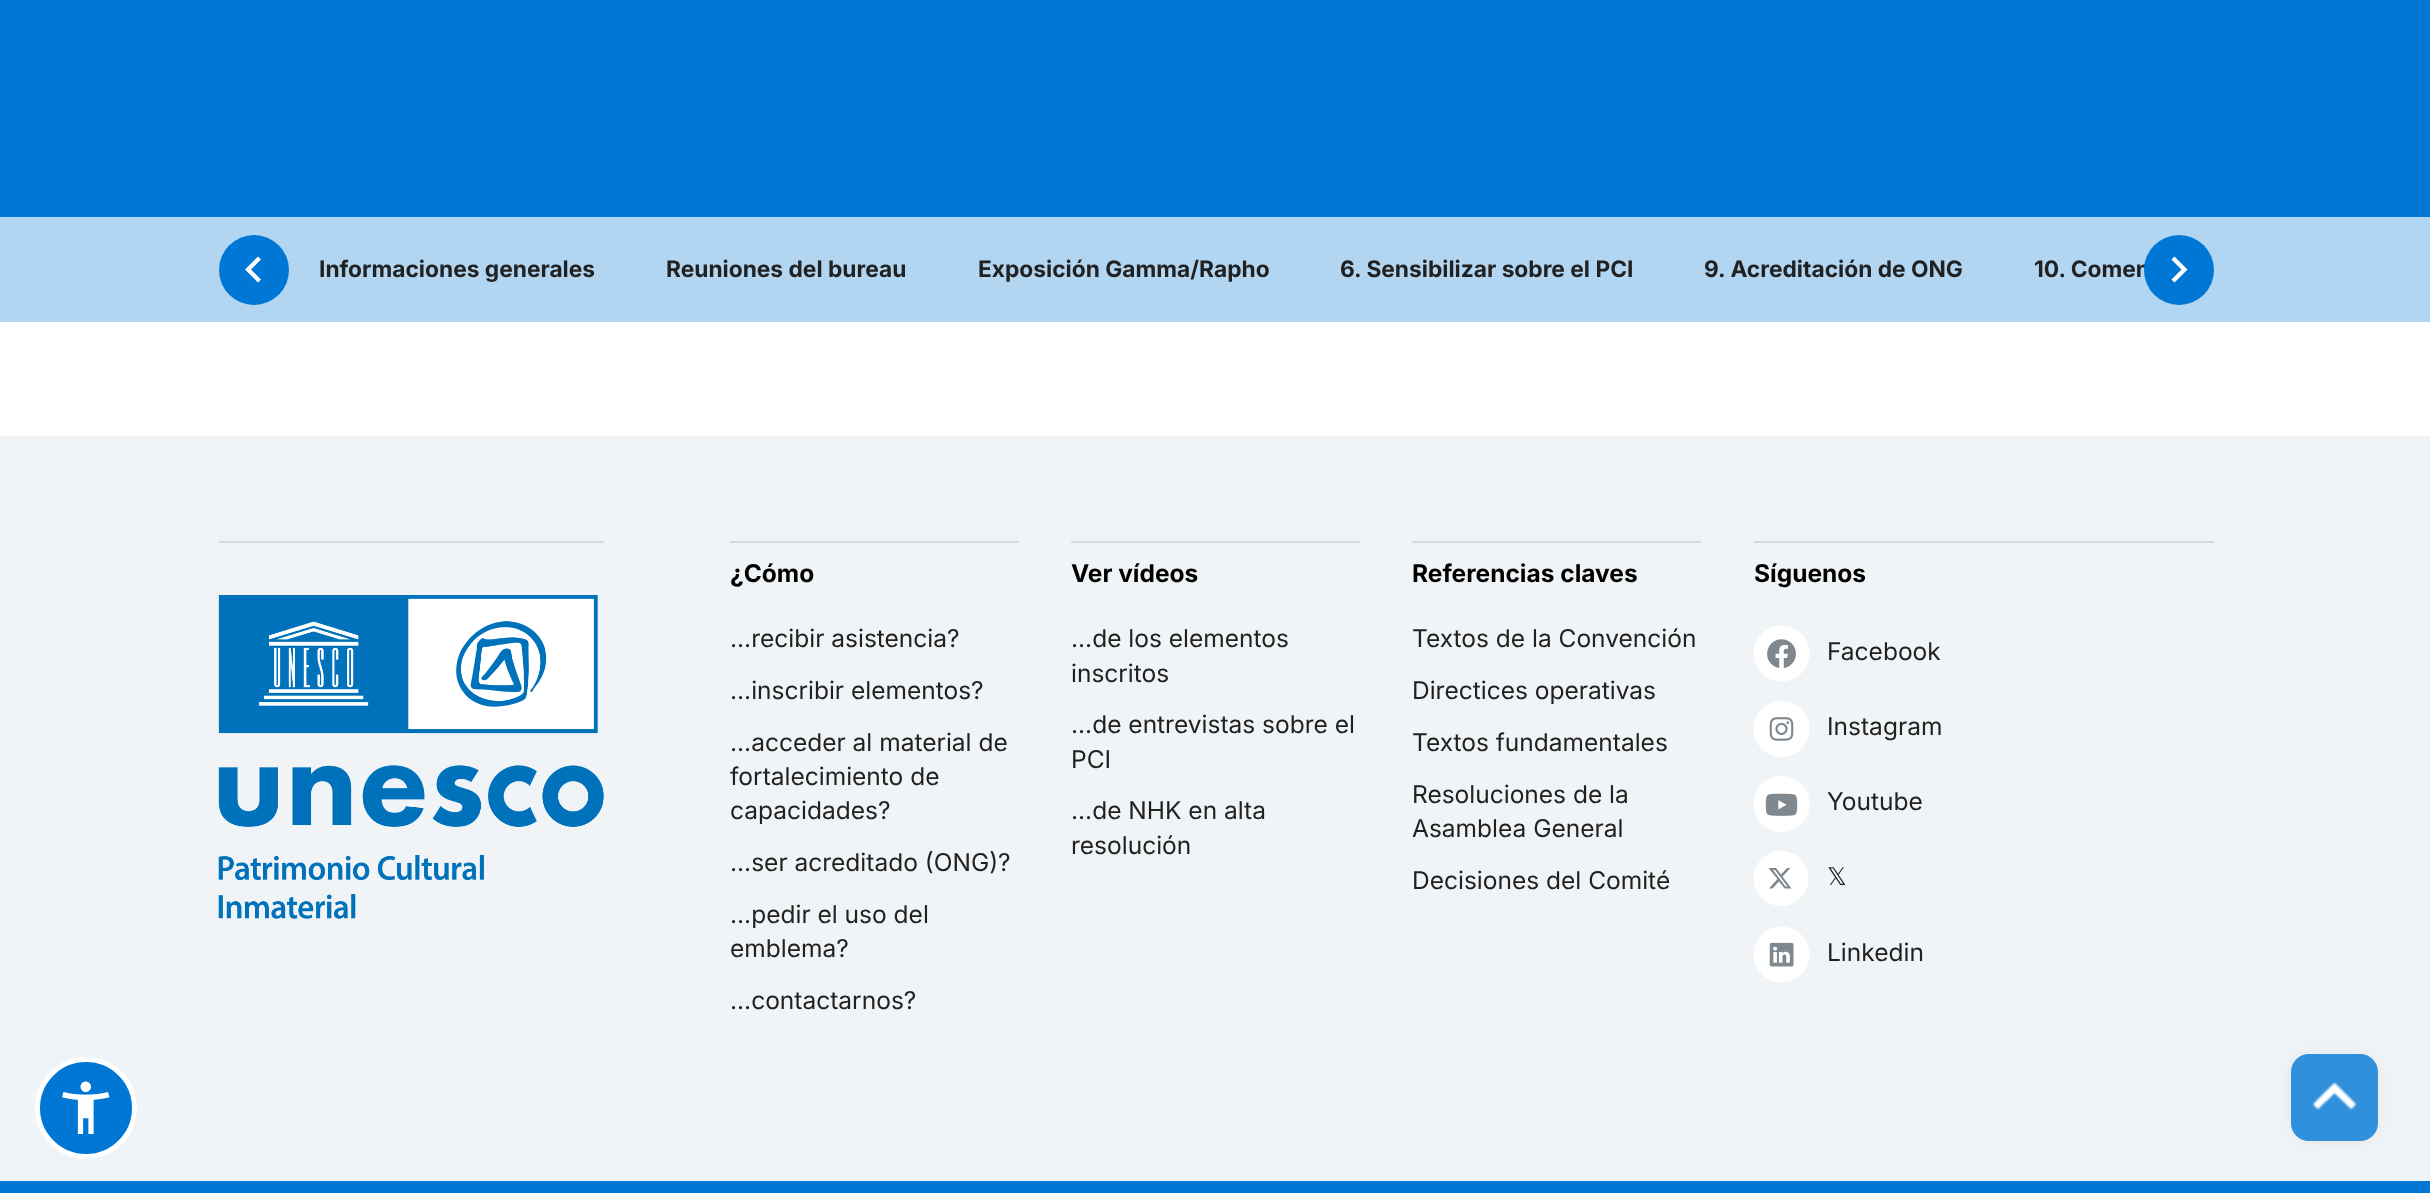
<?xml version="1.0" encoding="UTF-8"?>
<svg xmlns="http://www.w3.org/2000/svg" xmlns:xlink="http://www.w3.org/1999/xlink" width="2430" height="1193">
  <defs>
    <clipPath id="clip1"><rect x="1754" y="851" width="56" height="57" /></clipPath>
  </defs>
  <rect width="100%" height="100%" fill="#ffffff" />
  <rect width="2430" height="217" fill="#0077d4" />
  <rect y="217" width="2430" height="105" fill="#b2d6f2" />
  <circle cx="254" cy="270" r="35" fill="#0077d4" />
  <path d="M 261 259.5 l -3 -3 l -13 13 l 13 13 l 3 -3 l -10 -10 z" fill="#ffffff" />
  <rect y="436" width="2430" height="745" fill="#f1f4f6" />
  <rect x="219" y="541" width="385" height="2" fill="#d5dadd" />
  <image x="218" y="595" width="386" height="324" xlink:href="image1.png" />
  <rect x="730" y="541" width="289" height="2" fill="#d5dadd" />
  <rect x="1071" y="541" width="289" height="2" fill="#d5dadd" />
  <rect x="1412" y="541" width="289" height="2" fill="#d5dadd" />
  <rect x="1754" y="541" width="460" height="2" fill="#d5dadd" />
  <image x="1754" y="625" width="56" height="57" xlink:href="image2.png" />
  <image x="1754" y="701" width="56" height="56" xlink:href="image3.png" />
  <image x="1754" y="776" width="56" height="56" xlink:href="image4.png" />
  <g clip-path="url(#clip1)">
    <circle cx="1781" cy="878.5" r="27.5" fill="#ffffff" />
  </g>
  <path d="M 1787 868 h 3.5 l -8 8.5 l 9 12 h -7 l -5.5 -7 l -6.5 7 h -3.5 l 8.5 -9.5 l -9 -11 h 7.5 l 5 6.5 z m -1.5 18.5 h 2 l -12.5 -16.5 h -2 z" fill="#7f888f" />
  <image x="1754" y="926" width="56" height="57" xlink:href="image5.png" />
  <rect y="1181" width="2430" height="12" fill="#0077d4" />
  <circle cx="86" cy="1108" r="48.5" fill="#0077d4" stroke="#ffffff" stroke-width="5" />
  <image x="62" y="1081" width="48" height="53" xlink:href="image6.png" />
  <rect x="2291" y="1054" width="87" height="87" rx="18" fill="#000000" fill-opacity="0.05" filter="blur(9px)" />
  <rect x="2291" y="1054" width="87" height="87" rx="18" fill="#3090db" />
  <image x="2312" y="1082" width="45" height="29" xlink:href="image7.png" />
  <text x="319" y="277" style="font-family: Inter; font-size: 22.75px; font-weight: bold; fill: #212121">Informaciones generales</text>
  <text x="666" y="277" style="font-family: Inter; font-size: 22.75px; font-weight: bold; fill: #212121">Reuniones del bureau</text>
  <text x="978" y="277" style="font-family: Inter; font-size: 22.75px; font-weight: bold; fill: #212121">Exposición Gamma/Rapho</text>
  <text x="1340" y="277" style="font-family: Inter; font-size: 22.75px; font-weight: bold; fill: #212121">6. Sensibilizar sobre el PCI</text>
  <text x="1704" y="277" style="font-family: Inter; font-size: 22.75px; font-weight: bold; fill: #212121">9. Acreditación de ONG</text>
  <text x="2034" y="277" style="font-family: Inter; font-size: 22.75px; font-weight: bold; fill: #212121">10. Comen</text>
  <circle cx="2179" cy="270" r="35" fill="#0077d4" />
  <path d="M 2174.5 256.5 l -3 3 l 10 10 l -10 10 l 3 3 l 13 -13 z" fill="#ffffff" />
  <text x="730" y="582" style="font-family: Inter; font-size: 24.5px; font-weight: bold; fill: #000000">¿Cómo</text>
  <text x="730" y="647" style="font-family: Inter; font-size: 24.5px; fill: #212121">...recibir asistencia?</text>
  <text x="730" y="699" style="font-family: Inter; font-size: 24.5px; fill: #212121">...inscribir elementos?</text>
  <text x="730" y="751" style="font-family: Inter; font-size: 24.5px; fill: #212121">...acceder al material de</text>
  <text x="730" y="785" style="font-family: Inter; font-size: 24.5px; fill: #212121">fortalecimiento de</text>
  <text x="730" y="819" style="font-family: Inter; font-size: 24.5px; fill: #212121">capacidades?</text>
  <text x="730" y="871" style="font-family: Inter; font-size: 24.5px; fill: #212121">...ser acreditado (ONG)?</text>
  <text x="730" y="923" style="font-family: Inter; font-size: 24.5px; fill: #212121">...pedir el uso del</text>
  <text x="730" y="957" style="font-family: Inter; font-size: 24.5px; fill: #212121">emblema?</text>
  <text x="730" y="1009" style="font-family: Inter; font-size: 24.5px; fill: #212121">...contactarnos?</text>
  <text x="1071" y="582" style="font-family: Inter; font-size: 24.5px; font-weight: bold; fill: #000000">Ver vídeos</text>
  <text x="1071" y="647" style="font-family: Inter; font-size: 24.5px; fill: #212121">...de los elementos</text>
  <text x="1071" y="682" style="font-family: Inter; font-size: 24.5px; fill: #212121">inscritos</text>
  <text x="1071" y="733" style="font-family: Inter; font-size: 24.5px; fill: #212121">...de entrevistas sobre el</text>
  <text x="1071" y="768" style="font-family: Inter; font-size: 24.5px; fill: #212121">PCI</text>
  <text x="1071" y="819" style="font-family: Inter; font-size: 24.5px; fill: #212121">...de NHK en alta</text>
  <text x="1071" y="854" style="font-family: Inter; font-size: 24.5px; fill: #212121">resolución</text>
  <text x="1412" y="582" style="font-family: Inter; font-size: 24.5px; font-weight: bold; fill: #000000">Referencias claves</text>
  <text x="1412" y="647" style="font-family: Inter; font-size: 24.5px; fill: #212121">Textos de la Convención</text>
  <text x="1412" y="699" style="font-family: Inter; font-size: 24.5px; fill: #212121">Directices operativas</text>
  <text x="1412" y="751" style="font-family: Inter; font-size: 24.5px; fill: #212121">Textos fundamentales</text>
  <text x="1412" y="803" style="font-family: Inter; font-size: 24.5px; fill: #212121">Resoluciones de la</text>
  <text x="1412" y="837" style="font-family: Inter; font-size: 24.5px; fill: #212121">Asamblea General</text>
  <text x="1412" y="889" style="font-family: Inter; font-size: 24.5px; fill: #212121">Decisiones del Comité</text>
  <text x="1754" y="582" style="font-family: Inter; font-size: 24.5px; font-weight: bold; fill: #000000">Síguenos</text>
  <text x="1827" y="660" style="font-family: Inter; font-size: 24.5px; fill: #212121">Facebook</text>
  <text x="1827" y="735" style="font-family: Inter; font-size: 24.5px; fill: #212121">Instagram</text>
  <text x="1827" y="810" style="font-family: Inter; font-size: 24.5px; fill: #212121">Youtube</text>
  <text x="1827" y="885" style="font-family: DejaVu Sans; font-size: 24.5px; fill: #212121">𝕏</text>
  <text x="1827" y="961" style="font-family: Inter; font-size: 24.5px; fill: #212121">Linkedin</text>
</svg>
